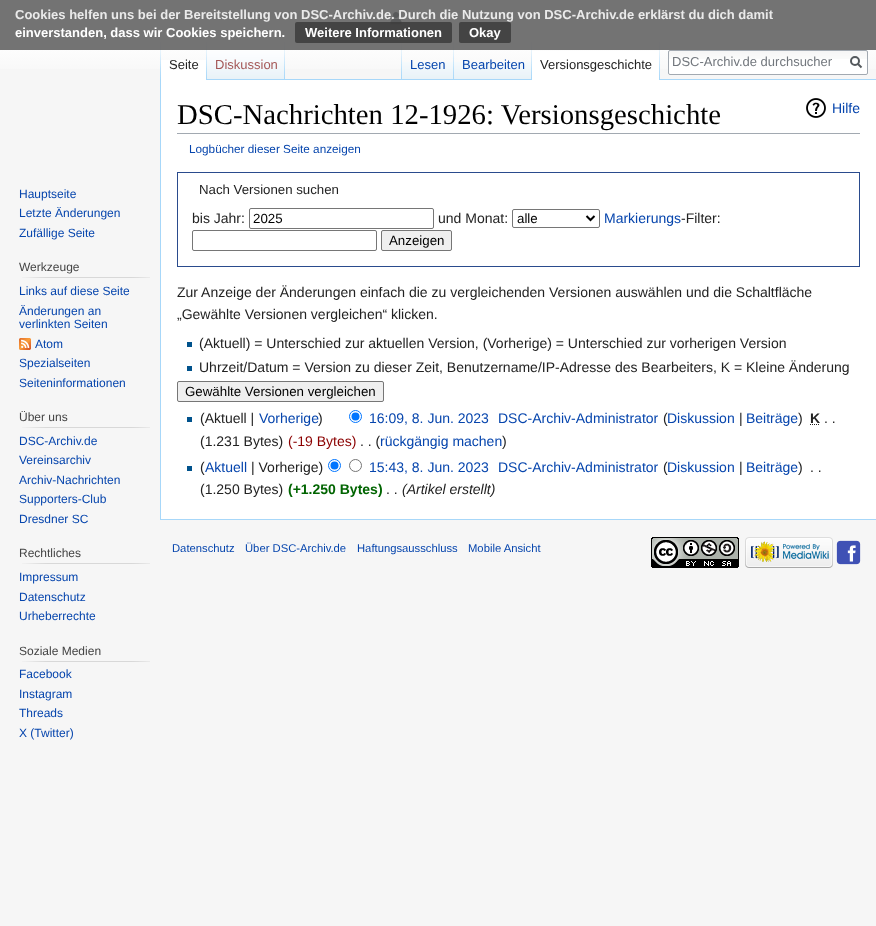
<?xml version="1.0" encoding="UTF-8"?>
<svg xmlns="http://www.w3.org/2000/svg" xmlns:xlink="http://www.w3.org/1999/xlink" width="876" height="926">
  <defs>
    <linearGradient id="g1" gradientUnits="userSpaceOnUse" x1="438" y1="0" x2="438" y2="80"><stop offset="0.5" stop-color="#ffffff" /><stop offset="1" stop-color="#f6f6f6" /></linearGradient>
    <clipPath id="clip1"><rect x="672" y="54" width="160" height="15" /></clipPath>
  </defs>
  <rect width="100%" height="100%" fill="#f6f6f6" />
  <rect width="876" height="69" fill="url(#g1)" />
  <image x="390" y="12" width="12" height="13" xlink:href="image1.png" />
  <image x="160" y="40" width="1" height="39" xlink:href="image2.png" />
  <image x="206" y="40" width="1" height="40" xlink:href="image3.png" />
  <image x="207" y="40" width="77" height="39" xlink:href="image4.png" />
  <image x="284" y="40" width="1" height="39" xlink:href="image2.png" />
  <image x="401" y="40" width="1" height="39" xlink:href="image2.png" />
  <image x="453" y="40" width="1" height="39" xlink:href="image2.png" />
  <image x="531" y="40" width="1" height="39" xlink:href="image2.png" />
  <rect x="207" y="79" width="669" height="1" fill="#a7d7f9" />
  <image x="659" y="40" width="1" height="40" xlink:href="image3.png" />
  <rect width="876" height="50" fill="#5a5a5a" fill-opacity="0.85" />
  <rect x="295" y="22" width="157" height="21" rx="2" fill="#3c3c3c" fill-opacity="0.85" />
  <rect x="459" y="22" width="52" height="21" rx="2" fill="#444444" />
  <rect x="161" y="60" width="45" height="20" fill="#ffffff" />
  <image x="402" y="62" width="51" height="17" xlink:href="image5.png" />
  <image x="454" y="62" width="77" height="17" xlink:href="image6.png" />
  <rect x="532" y="51" width="127" height="29" fill="#ffffff" />
  <rect x="668" y="50" width="200" height="25" rx="2" fill="#ffffff" />
  <image x="668" y="51" width="200" height="8" xlink:href="image7.png" />
  <rect x="668.5" y="50.5" width="199" height="24" rx="1.5" fill="none" stroke="#a2a9b1" />
  <path d="M 861.5 67.5 l -4 -4" fill="none" stroke="#54595d" stroke-width="2" />
  <circle cx="855" cy="61" r="4" fill="none" stroke="#54595d" stroke-width="2" />
  <image x="22" y="277" width="128" height="1" xlink:href="image8.png" />
  <image x="19" y="338" width="12" height="12" xlink:href="image9.png" />
  <image x="22" y="427" width="128" height="1" xlink:href="image8.png" />
  <image x="22" y="563" width="128" height="1" xlink:href="image8.png" />
  <image x="22" y="661" width="128" height="1" xlink:href="image8.png" />
  <rect x="161" y="80" width="715" height="439" fill="#ffffff" />
  <rect x="160" y="519" width="716" height="1" fill="#a7d7f9" />
  <rect x="160" y="79" width="1" height="441" fill="#a7d7f9" />
  <rect x="177" y="133" width="683" height="1" fill="#a2a9b1" />
  <image x="806" y="98" width="20" height="20" xlink:href="image10.png" />
  <rect x="177.5" y="172.5" width="682" height="94" fill="none" stroke="#2a4b8d" />
  <rect x="249.5" y="208.5" width="184" height="20" rx="1.5" fill="none" stroke="#767676" />
  <rect x="512.5" y="209.5" width="87" height="18" rx="1.5" fill="none" stroke="#767676" />
  <path d="M 586.5 216 l 4 4 l 4 -4" fill="none" stroke="#000000" stroke-width="2" />
  <rect x="192.5" y="230.5" width="184" height="20" rx="1.5" fill="none" stroke="#767676" />
  <rect x="381.5" y="230.5" width="70" height="20" rx="1.5" fill="#efefef" stroke="#767676" />
  <rect x="187" y="342" width="5" height="5" fill="#00528c" />
  <rect x="187" y="366" width="5" height="5" fill="#00528c" />
  <rect x="177.5" y="381.5" width="206" height="20" rx="1.5" fill="#efefef" stroke="#767676" />
  <rect x="187" y="417" width="5" height="5" fill="#00528c" />
  <circle cx="355.5" cy="416.5" r="6" fill="none" stroke="#0075ff" />
  <circle cx="355.5" cy="416.5" r="4" fill="#0075ff" />
  <path d="M 810 424.5 h 10" fill="none" stroke="#222222" stroke-dasharray="1 1" />
  <rect x="187" y="466" width="5" height="5" fill="#00528c" />
  <circle cx="334.5" cy="465.5" r="6" fill="none" stroke="#0075ff" />
  <circle cx="334.5" cy="465.5" r="4" fill="#0075ff" />
  <circle cx="355.5" cy="465.5" r="6" fill="none" stroke="#767676" />
  <image x="651" y="537" width="88" height="31" xlink:href="image11.png" />
  <image x="745" y="537" width="88" height="31" xlink:href="image12.png" />
  <image x="836" y="540" width="25" height="25" xlink:href="image13.png" />
  <text x="15" y="19" style="font-family: Liberation Sans; font-size: 13px; font-weight: bold; fill: #eaeaea">Cookies helfen uns bei der Bereitstellung von DSC-Archiv.de. Durch die Nutzung von DSC-Archiv.de erklärst du dich damit</text>
  <text x="15" y="37" style="font-family: Liberation Sans; font-size: 13px; font-weight: bold; fill: #ffffff">einverstanden, dass wir Cookies speichern.</text>
  <text x="305" y="37" style="font-family: Liberation Sans; font-size: 13px; font-weight: bold; fill: #ffffff">Weitere Informationen</text>
  <text x="469" y="37" style="font-family: Liberation Sans; font-size: 13px; font-weight: bold; fill: #ffffff">Okay</text>
  <text x="169" y="69" style="font-family: Liberation Sans; font-size: 13px; fill: #222222">Seite</text>
  <text x="215" y="69" style="font-family: Liberation Sans; font-size: 13px; fill: #a55858">Diskussion</text>
  <text x="410" y="69" style="font-family: Liberation Sans; font-size: 13px; fill: #0645ad">Lesen</text>
  <text x="462" y="69" style="font-family: Liberation Sans; font-size: 13px; fill: #0645ad">Bearbeiten</text>
  <text x="540" y="69" style="font-family: Liberation Sans; font-size: 13px; fill: #222222">Versionsgeschichte</text>
  <g clip-path="url(#clip1)">
    <text x="672" y="66" style="font-family: Liberation Sans; font-size: 13px; fill: #72777d">DSC-Archiv.de durchsuchen</text>
  </g>
  <text x="19" y="198" style="font-family: Liberation Sans; font-size: 12px; fill: #0645ad">Hauptseite</text>
  <text x="19" y="217" style="font-family: Liberation Sans; font-size: 12px; fill: #0645ad">Letzte Änderungen</text>
  <text x="19" y="237" style="font-family: Liberation Sans; font-size: 12px; fill: #0645ad">Zufällige Seite</text>
  <text x="19" y="271" style="font-family: Liberation Sans; font-size: 12px; fill: #444444">Werkzeuge</text>
  <text x="19" y="295" style="font-family: Liberation Sans; font-size: 12px; fill: #0645ad">Links auf diese Seite</text>
  <text x="19" y="315" style="font-family: Liberation Sans; font-size: 12px; fill: #0645ad">Änderungen an</text>
  <text x="19" y="328" style="font-family: Liberation Sans; font-size: 12px; fill: #0645ad">verlinkten Seiten</text>
  <text x="35" y="348" style="font-family: Liberation Sans; font-size: 12px; fill: #0645ad">Atom</text>
  <text x="19" y="367" style="font-family: Liberation Sans; font-size: 12px; fill: #0645ad">Spezialseiten</text>
  <text x="19" y="387" style="font-family: Liberation Sans; font-size: 12px; fill: #0645ad">Seiteninformationen</text>
  <text x="19" y="421" style="font-family: Liberation Sans; font-size: 12px; fill: #444444">Über uns</text>
  <text x="19" y="445" style="font-family: Liberation Sans; font-size: 12px; fill: #0645ad">DSC-Archiv.de</text>
  <text x="19" y="464" style="font-family: Liberation Sans; font-size: 12px; fill: #0645ad">Vereinsarchiv</text>
  <text x="19" y="484" style="font-family: Liberation Sans; font-size: 12px; fill: #0645ad">Archiv-Nachrichten</text>
  <text x="19" y="503" style="font-family: Liberation Sans; font-size: 12px; fill: #0645ad">Supporters-Club</text>
  <text x="19" y="523" style="font-family: Liberation Sans; font-size: 12px; fill: #0645ad">Dresdner SC</text>
  <text x="19" y="557" style="font-family: Liberation Sans; font-size: 12px; fill: #444444">Rechtliches</text>
  <text x="19" y="581" style="font-family: Liberation Sans; font-size: 12px; fill: #0645ad">Impressum</text>
  <text x="19" y="601" style="font-family: Liberation Sans; font-size: 12px; fill: #0645ad">Datenschutz</text>
  <text x="19" y="620" style="font-family: Liberation Sans; font-size: 12px; fill: #0645ad">Urheberrechte</text>
  <text x="19" y="655" style="font-family: Liberation Sans; font-size: 12px; fill: #444444">Soziale Medien</text>
  <text x="19" y="678" style="font-family: Liberation Sans; font-size: 12px; fill: #0645ad">Facebook</text>
  <text x="19" y="698" style="font-family: Liberation Sans; font-size: 12px; fill: #0645ad">Instagram</text>
  <text x="19" y="717" style="font-family: Liberation Sans; font-size: 12px; fill: #0645ad">Threads</text>
  <text x="19" y="737" style="font-family: Liberation Sans; font-size: 12px; fill: #0645ad">X (Twitter)</text>
  <text x="177" y="124" style="font-family: Liberation Serif; font-size: 28.75px; fill: #000000">DSC-Nachrichten 12-1926: Versionsgeschichte</text>
  <text x="832" y="113" style="font-family: Liberation Sans; font-size: 14px; fill: #0645ad">Hilfe</text>
  <text x="189" y="153" style="font-family: Liberation Sans; font-size: 11.75px; fill: #0645ad">Logbücher dieser Seite anzeigen</text>
  <text x="199" y="194" style="font-family: Liberation Sans; font-size: 13.25px; fill: #222222">Nach Versionen suchen</text>
  <text x="192" y="223" style="font-family: Liberation Sans; font-size: 14px; fill: #222222">bis Jahr:</text>
  <text x="253" y="223" style="font-family: Liberation Sans; font-size: 13.3px; fill: #000000">2025</text>
  <text x="438" y="223" style="font-family: Liberation Sans; font-size: 14px; fill: #222222">und Monat:</text>
  <text x="517" y="223" style="font-family: Liberation Sans; font-size: 13.3px; fill: #000000">alle</text>
  <text x="604" y="223" style="font-family: Liberation Sans; font-size: 14px; fill: #0645ad">Markierungs</text>
  <text x="681" y="223" style="font-family: Liberation Sans; font-size: 14px; fill: #222222">-Filter:</text>
  <text x="389" y="245" style="font-family: Liberation Sans; font-size: 13.3px; fill: #000000">Anzeigen</text>
  <text x="177" y="297" style="font-family: Liberation Sans; font-size: 14px; fill: #222222">Zur Anzeige der Änderungen einfach die zu vergleichenden Versionen auswählen und die Schaltfläche</text>
  <text x="177" y="319" style="font-family: Liberation Sans; font-size: 14px; fill: #222222">„Gewählte Versionen vergleichen“ klicken.</text>
  <text x="199" y="348" style="font-family: Liberation Sans; font-size: 14px; fill: #222222">(Aktuell) = Unterschied zur aktuellen Version, (Vorherige) = Unterschied zur vorherigen Version</text>
  <text x="199" y="372" style="font-family: Liberation Sans; font-size: 14px; fill: #222222">Uhrzeit/Datum = Version zu dieser Zeit, Benutzername/IP-Adresse des Bearbeiters, K = Kleine Änderung</text>
  <text x="185" y="396" style="font-family: Liberation Sans; font-size: 13.3px; fill: #000000">Gewählte Versionen vergleichen</text>
  <text x="200" y="423" style="font-family: Liberation Sans; font-size: 14px; fill: #222222">(Aktuell |</text>
  <text x="259" y="423" style="font-family: Liberation Sans; font-size: 14px; fill: #0645ad">Vorherige</text>
  <text x="318" y="423" style="font-family: Liberation Sans; font-size: 14px; fill: #222222">)</text>
  <text x="369" y="423" style="font-family: Liberation Sans; font-size: 14px; fill: #0645ad">16:09, 8. Jun. 2023</text>
  <text x="498" y="423" style="font-family: Liberation Sans; font-size: 14px; fill: #0645ad">DSC-Archiv-Administrator</text>
  <text x="663" y="423" style="font-family: Liberation Sans; font-size: 14px; fill: #222222">(</text>
  <text x="667" y="423" style="font-family: Liberation Sans; font-size: 14px; fill: #0645ad">Diskussion</text>
  <text x="739" y="423" style="font-family: Liberation Sans; font-size: 14px; fill: #222222">|</text>
  <text x="746" y="423" style="font-family: Liberation Sans; font-size: 14px; fill: #0645ad">Beiträge</text>
  <text x="798" y="423" style="font-family: Liberation Sans; font-size: 14px; fill: #222222">)</text>
  <text x="810" y="423" style="font-family: Liberation Sans; font-size: 14px; font-weight: bold; fill: #222222">K</text>
  <text x="824" y="423" style="font-family: Liberation Sans; font-size: 14px; fill: #222222">. .</text>
  <text x="200" y="446" style="font-family: Liberation Sans; font-size: 14px; fill: #222222">(1.231 Bytes)</text>
  <text x="288" y="446" style="font-family: Liberation Sans; font-size: 14px; fill: #8b0000">(-19 Bytes)</text>
  <text x="360" y="446" style="font-family: Liberation Sans; font-size: 14px; fill: #222222">. . (</text>
  <text x="380" y="446" style="font-family: Liberation Sans; font-size: 14px; fill: #0645ad">rückgängig machen</text>
  <text x="502" y="446" style="font-family: Liberation Sans; font-size: 14px; fill: #222222">)</text>
  <text x="200" y="472" style="font-family: Liberation Sans; font-size: 14px; fill: #222222">(</text>
  <text x="205" y="472" style="font-family: Liberation Sans; font-size: 14px; fill: #0645ad">Aktuell</text>
  <text x="251" y="472" style="font-family: Liberation Sans; font-size: 14px; fill: #222222">| Vorherige)</text>
  <text x="369" y="472" style="font-family: Liberation Sans; font-size: 14px; fill: #0645ad">15:43, 8. Jun. 2023</text>
  <text x="498" y="472" style="font-family: Liberation Sans; font-size: 14px; fill: #0645ad">DSC-Archiv-Administrator</text>
  <text x="663" y="472" style="font-family: Liberation Sans; font-size: 14px; fill: #222222">(</text>
  <text x="667" y="472" style="font-family: Liberation Sans; font-size: 14px; fill: #0645ad">Diskussion</text>
  <text x="739" y="472" style="font-family: Liberation Sans; font-size: 14px; fill: #222222">|</text>
  <text x="746" y="472" style="font-family: Liberation Sans; font-size: 14px; fill: #0645ad">Beiträge</text>
  <text x="798" y="472" style="font-family: Liberation Sans; font-size: 14px; fill: #222222">)</text>
  <text x="810" y="472" style="font-family: Liberation Sans; font-size: 14px; fill: #222222">. .</text>
  <text x="200" y="494" style="font-family: Liberation Sans; font-size: 14px; fill: #222222">(1.250 Bytes)</text>
  <text x="288" y="494" style="font-family: Liberation Sans; font-size: 14px; font-weight: bold; fill: #006400">(+1.250 Bytes)</text>
  <text x="386" y="494" style="font-family: Liberation Sans; font-size: 14px; fill: #222222">. .</text>
  <text x="402" y="494" style="font-family: Liberation Sans; font-size: 14px; font-style: italic; fill: #222222">(Artikel erstellt)</text>
  <text x="172" y="552" style="font-family: Liberation Sans; font-size: 11.25px; fill: #0645ad">Datenschutz</text>
  <text x="245" y="552" style="font-family: Liberation Sans; font-size: 11.25px; fill: #0645ad">Über DSC-Archiv.de</text>
  <text x="357" y="552" style="font-family: Liberation Sans; font-size: 11.25px; fill: #0645ad">Haftungsausschluss</text>
  <text x="468" y="552" style="font-family: Liberation Sans; font-size: 11.25px; fill: #0645ad">Mobile Ansicht</text>
</svg>
